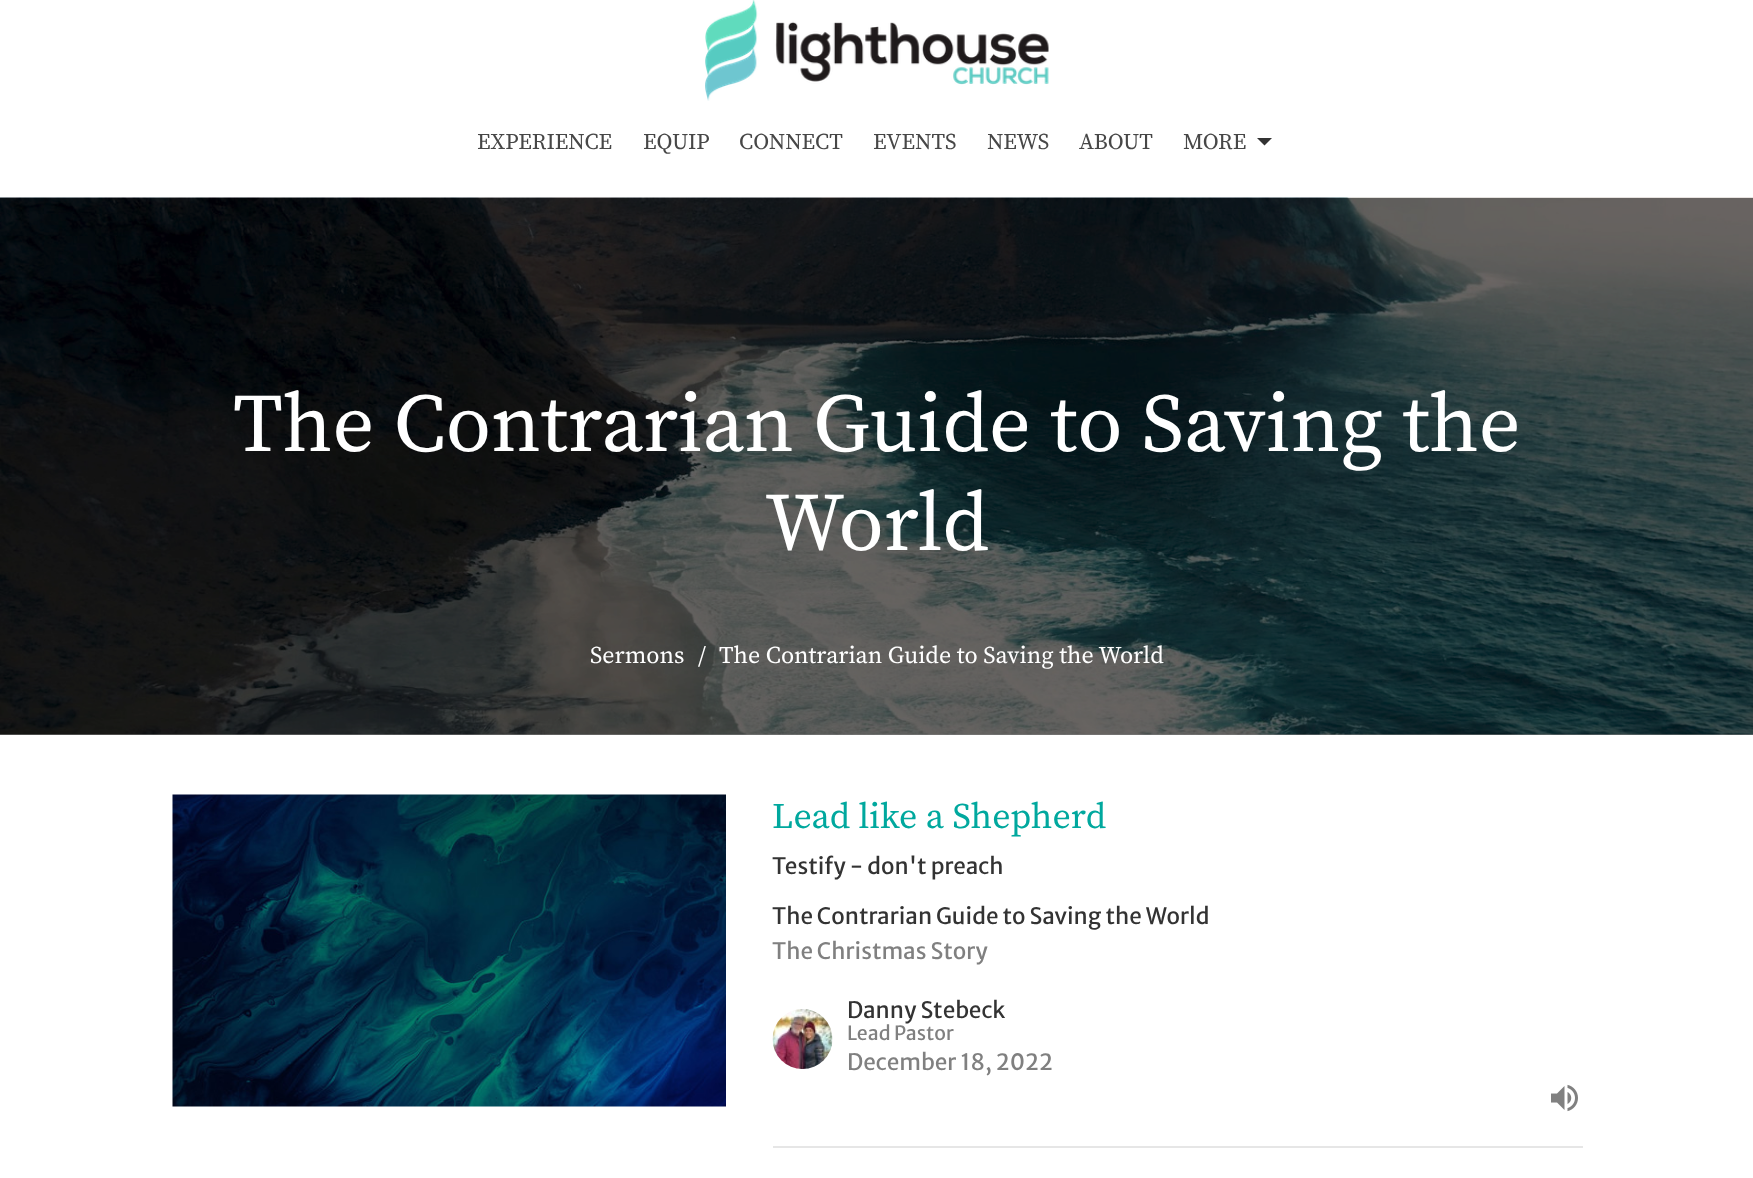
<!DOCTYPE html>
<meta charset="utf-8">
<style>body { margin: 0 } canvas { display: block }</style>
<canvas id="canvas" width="1753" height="1178"></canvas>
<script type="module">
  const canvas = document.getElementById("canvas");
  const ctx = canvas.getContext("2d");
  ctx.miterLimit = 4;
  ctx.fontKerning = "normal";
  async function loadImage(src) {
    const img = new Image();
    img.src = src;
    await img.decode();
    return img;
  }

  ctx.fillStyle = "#ffffff";
  ctx.fillRect(0, 0, 1753, 1178);
  ctx.fillStyle = "#808080";
  ctx.fillRect(0, 734, 1753, 1);
  ctx.drawImage(await loadImage("img1.png"), 705, 0, 344, 101);
  ctx.font = "22.5px Source Serif Pro";
  ctx.fillStyle = "#474747";
  ctx.fillText("EXPERIENCE", 477, 149);
  ctx.fillText("EQUIP", 643, 149);
  ctx.fillText("CONNECT", 739, 149);
  ctx.fillText("EVENTS", 873, 149);
  ctx.fillText("NEWS", 987, 149);
  ctx.fillText("ABOUT", 1079, 149);
  ctx.fillText("MORE", 1183, 149);
  ctx.fillStyle = "#333333";
  ctx.beginPath();
  ctx.moveTo(1257, 138);
  ctx.lineTo(1264.5, 145.5);
  ctx.lineTo(1272, 138);
  ctx.closePath();
  ctx.fill();
  ctx.drawImage(await loadImage("img2.png"), 0, 197, 1753, 538);
  ctx.font = "82.5px Source Serif Pro";
  ctx.fillStyle = "#ffffff";
  ctx.fillText("The Contrarian Guide to Saving the", 233, 451);
  ctx.fillText("World", 765, 550);
  ctx.font = "24px Source Serif Pro";
  ctx.fillText("Sermons", 590, 663);
  ctx.fillText("/", 698, 663);
  ctx.fillText("The Contrarian Guide to Saving the World", 719, 663);
  ctx.drawImage(await loadImage("img3.png"), 172, 794, 554, 313);
  ctx.fillStyle = "#e6e6e6";
  ctx.fillRect(773, 1146, 810, 2);
  ctx.font = "36px Source Serif Pro";
  ctx.fillStyle = "#00a89e";
  ctx.fillText("Lead like a Shepherd", 772, 828);
  ctx.font = "22.5px Merriweather Sans";
  ctx.fillStyle = "#333333";
  ctx.fillText("Testify - don't preach", 772, 874);
  ctx.fillText("The Contrarian Guide to Saving the World", 772, 924);
  ctx.fillStyle = "#808080";
  ctx.fillText("The Christmas Story", 772, 959);
  ctx.drawImage(await loadImage("img4.png"), 772, 1009, 61, 60);
  ctx.fillStyle = "#333333";
  ctx.fillText("Danny Stebeck", 847, 1018);
  ctx.font = "19.5px Merriweather Sans";
  ctx.fillStyle = "#808080";
  ctx.fillText("Lead Pastor", 847, 1040);
  ctx.font = "22.5px Merriweather Sans";
  ctx.fillText("December 18, 2022", 847, 1070);
  ctx.drawImage(await loadImage("img5.png"), 1551, 1084, 27, 28);
</script>
